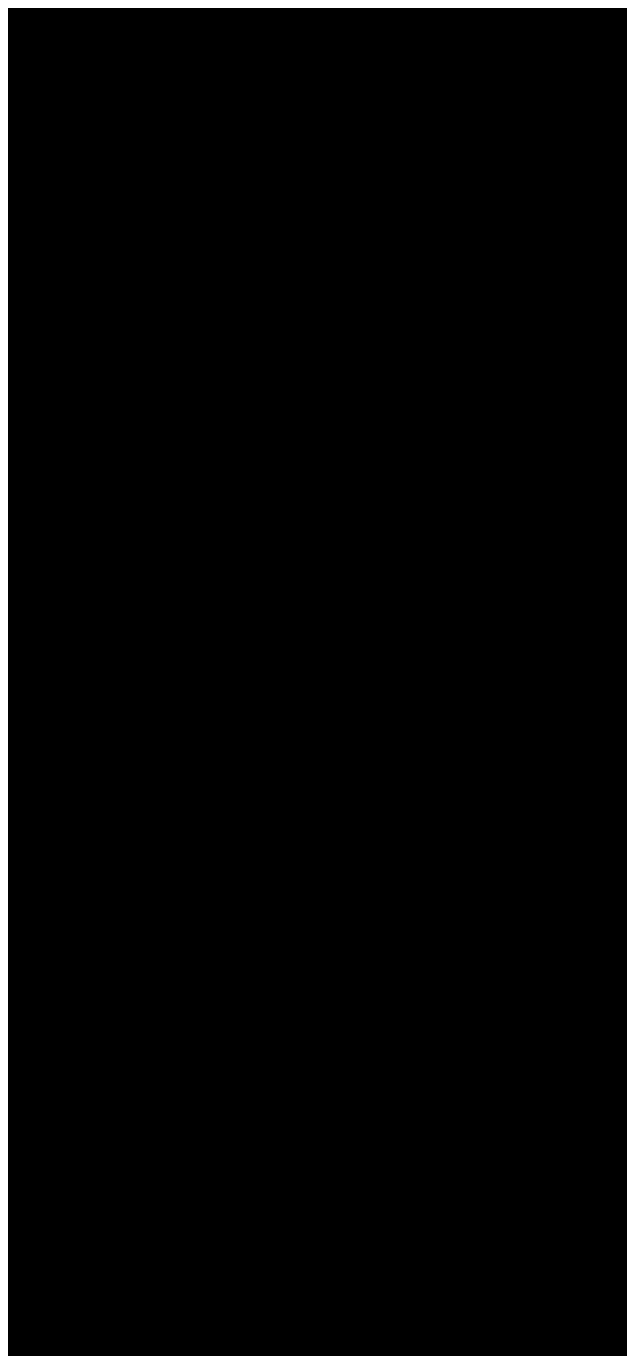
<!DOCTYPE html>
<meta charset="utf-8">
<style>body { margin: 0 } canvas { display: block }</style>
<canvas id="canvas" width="627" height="1356"></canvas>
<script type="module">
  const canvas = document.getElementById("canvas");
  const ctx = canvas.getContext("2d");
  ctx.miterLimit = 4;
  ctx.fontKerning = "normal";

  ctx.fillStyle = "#ffffff";
  ctx.fillRect(0, 0, 627, 1356);
  ctx.fillStyle = "#000000";
  ctx.fillRect(8, 8, 619, 1348);
</script>
